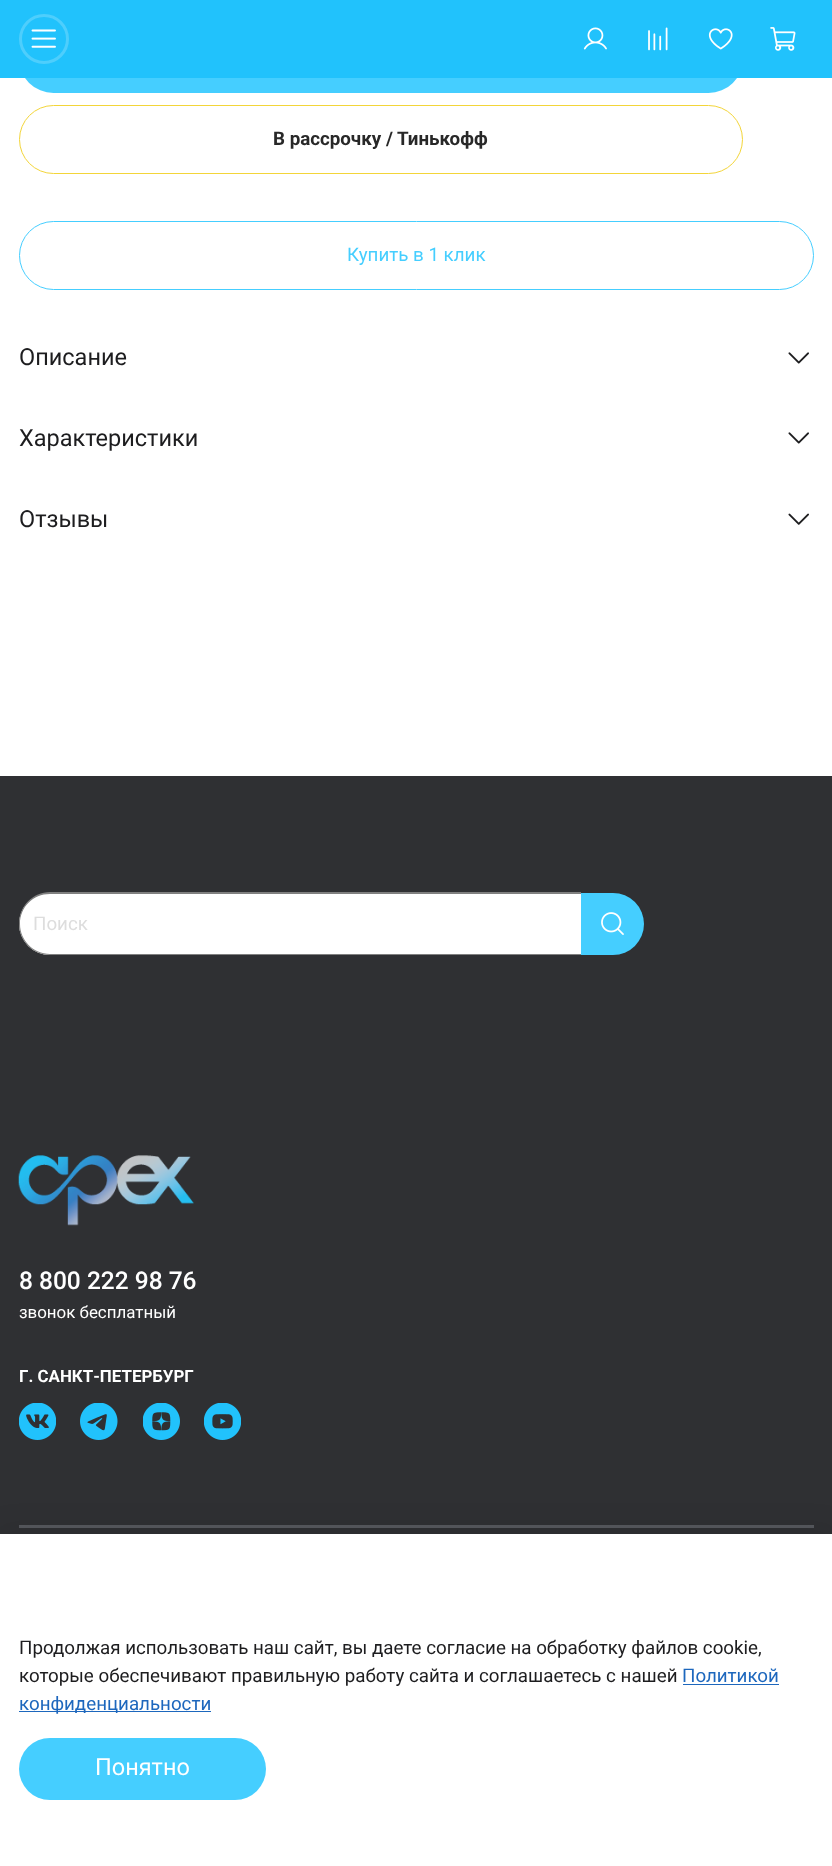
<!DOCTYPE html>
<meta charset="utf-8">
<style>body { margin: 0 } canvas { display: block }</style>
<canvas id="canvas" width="832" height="1866"></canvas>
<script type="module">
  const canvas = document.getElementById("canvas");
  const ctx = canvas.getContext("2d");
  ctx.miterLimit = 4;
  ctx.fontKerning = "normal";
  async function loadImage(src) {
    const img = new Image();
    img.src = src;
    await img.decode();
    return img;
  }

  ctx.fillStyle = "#ffffff";
  ctx.fillRect(0, 0, 832, 1866);
  ctx.fillStyle = "#45ceff";
  ctx.beginPath();
  ctx.roundRect(19, 24, 724, 69, 34.5);
  ctx.fill();
  ctx.fillStyle = "#21c2fc";
  ctx.fillRect(0, 0, 832, 78);
  ctx.beginPath();
  ctx.arc(44, 39, 23.5, 0, Math.PI * 2);
  ctx.strokeStyle = "#4ecefc";
  ctx.lineWidth = 3;
  ctx.stroke();
  ctx.drawImage(await loadImage("img1.png"), 31, 29, 25, 19);
  ctx.drawImage(await loadImage("img2.png"), 583, 27, 24, 23);
  ctx.drawImage(await loadImage("img3.png"), 648, 27, 20, 24);
  ctx.drawImage(await loadImage("img4.png"), 708, 28, 25, 22);
  ctx.drawImage(await loadImage("img5.png"), 770, 27, 26, 24);
  ctx.beginPath();
  ctx.roundRect(19.5, 105.5, 723, 68, 34);
  ctx.strokeStyle = "#f3d539";
  ctx.lineWidth = 1;
  ctx.stroke();
  ctx.font = "bold 18.75px Roboto";
  ctx.fillStyle = "#282828";
  ctx.fillText("В рассрочку / Тинькофф", 273, 145);
  ctx.beginPath();
  ctx.roundRect(19.5, 221.5, 794, 68, 34);
  ctx.strokeStyle = "#45ceff";
  ctx.stroke();
  ctx.font = "18.75px Roboto";
  ctx.fillStyle = "#45ceff";
  ctx.fillText("Купить в 1 клик", 347, 261);
  ctx.font = "23.5px Roboto";
  ctx.fillStyle = "#1d1d1f";
  ctx.fillText("Описание", 19, 365);
  ctx.drawImage(await loadImage("img6.png"), 788, 352, 21, 12);
  ctx.fillText("Характеристики", 19, 446);
  ctx.drawImage(await loadImage("img6.png"), 788, 432, 21, 12);
  ctx.fillText("Отзывы", 19, 527);
  ctx.drawImage(await loadImage("img7.png"), 788, 513, 21, 12);
  ctx.fillStyle = "#2f3033";
  ctx.fillRect(0, 776, 832, 758);
  ctx.fillStyle = "#ffffff";
  ctx.beginPath();
  ctx.roundRect(19, 893, 562, 62, [31, 0, 0, 31]);
  ctx.fill();
  ctx.fillStyle = "#808080";
  ctx.beginPath();
  ctx.moveTo(50, 892);
  ctx.lineTo(581, 892);
  ctx.lineTo(581, 955);
  ctx.lineTo(50, 955);
  ctx.bezierCurveTo(33, 955, 19, 941, 19, 924);
  ctx.bezierCurveTo(19, 906, 33, 892, 50, 892);
  ctx.closePath();
  ctx.moveTo(50, 894);
  ctx.lineTo(581, 894);
  ctx.lineTo(581, 954);
  ctx.lineTo(50, 954);
  ctx.bezierCurveTo(33, 954, 20, 940, 20, 924);
  ctx.bezierCurveTo(20, 907, 33, 894, 50, 894);
  ctx.closePath();
  ctx.fill("evenodd");
  ctx.font = "18.75px Roboto";
  ctx.fillStyle = "#dddddd";
  ctx.fillText("Поиск", 33, 930);
  ctx.fillStyle = "#45ceff";
  ctx.beginPath();
  ctx.roundRect(581, 893, 63, 62, [0, 31, 31, 0]);
  ctx.fill();
  ctx.drawImage(await loadImage("img8.png"), 601, 912, 23, 23);
  ctx.drawImage(await loadImage("img9.png"), 18, 1155, 176, 71);
  ctx.font = "500 24.5px Roboto";
  ctx.fillStyle = "#ffffff";
  ctx.fillText("8 800 222 98 76", 19, 1289);
  ctx.font = "16.9px Roboto";
  ctx.fillText("звонок бесплатный", 19, 1318);
  ctx.font = "bold 16.9px Roboto";
  ctx.fillText("Г. САНКТ-ПЕТЕРБУРГ", 19, 1382);
  ctx.drawImage(await loadImage("img10.png"), 19, 1403, 37, 37);
  ctx.drawImage(await loadImage("img11.png"), 80, 1403, 38, 37);
  ctx.drawImage(await loadImage("img12.png"), 143, 1403, 37, 37);
  ctx.drawImage(await loadImage("img13.png"), 204, 1403, 37, 37);
  ctx.fillStyle = "#56585d";
  ctx.fillRect(19, 1525, 795, 3);
  ctx.fillStyle = "rgba(0, 0, 0, 0.09)";
  ctx.filter = "blur(14.5px)";
  ctx.beginPath();
  ctx.rect(-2, 1530, 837, 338);
  ctx.fill();
  ctx.filter = "none";
  ctx.fillStyle = "#ffffff";
  ctx.fillRect(0, 1534, 832, 332);
  ctx.font = "18.75px Roboto";
  ctx.fillStyle = "#1d1d1f";
  ctx.fillText("Продолжая использовать наш сайт, вы даете согласие на обработку файлов cookie,", 19, 1654);
  ctx.fillText("которые обеспечивают правильную работу сайта и соглашаетесь с нашей", 19, 1682);
  ctx.fillStyle = "#1d67bd";
  ctx.fillText("Политикой", 682, 1682);
  ctx.fillRect(683, 1684, 96, 1);
  ctx.fillRect(19, 1711, 192, 1);
  ctx.fillText("конфиденциальности", 19, 1710);
  ctx.fillStyle = "#45ceff";
  ctx.beginPath();
  ctx.roundRect(19, 1738, 247, 62, 31);
  ctx.fill();
  ctx.font = "23.5px Roboto";
  ctx.fillStyle = "#ffffff";
  ctx.fillText("Понятно", 95, 1775);
</script>
